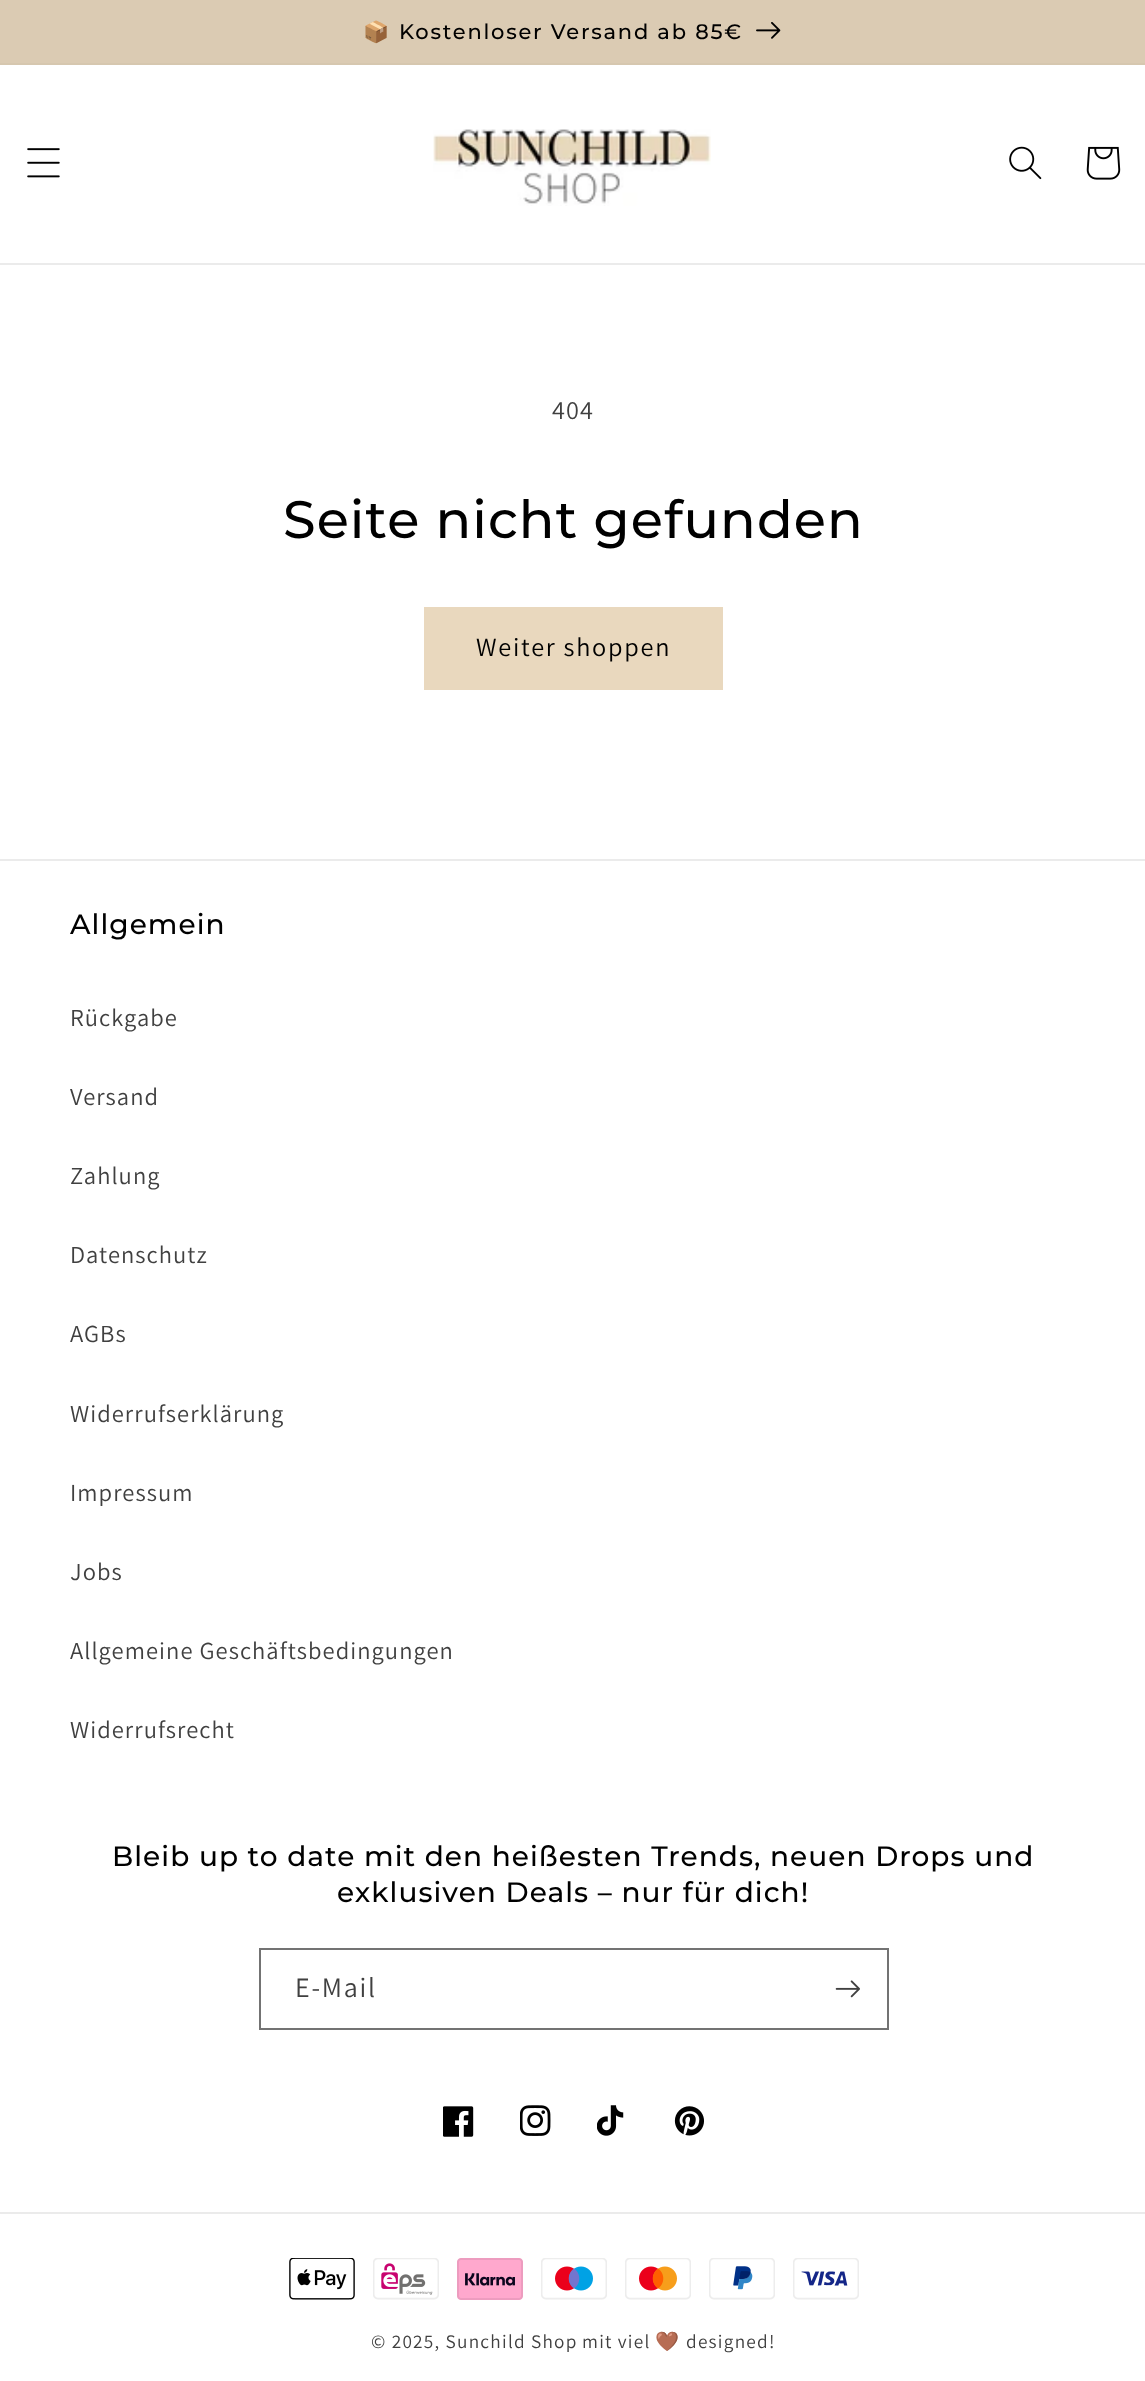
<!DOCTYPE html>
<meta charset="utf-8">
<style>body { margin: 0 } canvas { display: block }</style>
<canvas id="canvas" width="1145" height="2381"></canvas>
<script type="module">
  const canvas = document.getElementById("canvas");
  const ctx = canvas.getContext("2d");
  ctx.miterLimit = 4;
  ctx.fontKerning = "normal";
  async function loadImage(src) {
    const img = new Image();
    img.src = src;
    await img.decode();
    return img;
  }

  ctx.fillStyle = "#ffffff";
  ctx.fillRect(0, 0, 1145, 2381);
  ctx.fillStyle = "#d6c7af";
  ctx.fillRect(0, 63, 1145, 2);
  ctx.fillStyle = "#dbcbb3";
  ctx.fillRect(0, 0, 1145, 63);
  ctx.letterSpacing = "1.75px";
  ctx.font = "21px Noto Color Emoji";
  ctx.fillStyle = "#000000";
  ctx.fillText("📦", 363, 39);
  ctx.font = "500 21px Montserrat";
  ctx.fillText("Kostenloser Versand ab 85€", 399, 39);
  ctx.drawImage(await loadImage("img1.png"), 756, 22, 25, 17);
  ctx.fillStyle = "#ebebeb";
  ctx.fillRect(0, 263, 1145, 2);
  ctx.drawImage(await loadImage("img2.png"), 27, 148, 33, 30);
  ctx.drawImage(await loadImage("img3.png"), 433, 129, 278, 77);
  ctx.drawImage(await loadImage("img4.png"), 1009, 146, 33, 34);
  ctx.drawImage(await loadImage("img5.png"), 1086, 146, 35, 34);
  ctx.letterSpacing = "1.05px";
  ctx.font = "26.25px Assistant";
  ctx.fillStyle = "#404040";
  ctx.fillText("404", 552, 419);
  ctx.font = "500 52.5px Montserrat";
  ctx.fillStyle = "#000000";
  ctx.fillText("Seite nicht gefunden", 283, 538);
  ctx.fillStyle = "#e9d8be";
  ctx.fillRect(424, 607, 299, 83);
  ctx.letterSpacing = "1.75px";
  ctx.font = "26.25px Assistant";
  ctx.fillStyle = "#000000";
  ctx.fillText("Weiter shoppen", 476, 656);
  ctx.fillStyle = "#ebebeb";
  ctx.fillRect(0, 859, 1145, 2);
  ctx.letterSpacing = "1.05px";
  ctx.font = "500 28px Montserrat";
  ctx.fillStyle = "#000000";
  ctx.fillText("Allgemein", 70, 934);
  ctx.font = "24.5px Assistant";
  ctx.fillStyle = "#404040";
  ctx.fillText("Rückgabe", 70, 1026);
  ctx.fillText("Versand", 70, 1105);
  ctx.fillText("Zahlung", 70, 1184);
  ctx.fillText("Datenschutz", 70, 1263);
  ctx.fillText("AGBs", 70, 1342);
  ctx.fillText("Widerrufserklärung", 70, 1422);
  ctx.fillText("Impressum", 70, 1501);
  ctx.fillText("Jobs", 70, 1580);
  ctx.fillText("Allgemeine Geschäftsbedingungen", 70, 1659);
  ctx.fillText("Widerrufsrecht", 70, 1738);
  ctx.font = "500 28px Montserrat";
  ctx.fillStyle = "#000000";
  ctx.fillText("Bleib up to date mit den heißesten Trends, neuen Drops und", 112, 1866);
  ctx.fillText("exklusiven Deals – nur für dich!", 337, 1902);
  ctx.strokeStyle = "#737373";
  ctx.lineWidth = 2;
  ctx.strokeRect(260, 1949, 628, 80);
  ctx.letterSpacing = "1.75px";
  ctx.font = "28px Assistant";
  ctx.fillStyle = "#404040";
  ctx.fillText("E-Mail", 295, 1997);
  ctx.drawImage(await loadImage("img6.png"), 835, 1980, 25, 18);
  ctx.drawImage(await loadImage("img7.png"), 443, 2106, 31, 31);
  ctx.drawImage(await loadImage("img8.png"), 520, 2105, 31, 31);
  ctx.drawImage(await loadImage("img9.png"), 597, 2105, 27, 31);
  ctx.drawImage(await loadImage("img10.png"), 674, 2106, 30, 30);
  ctx.fillStyle = "#ebebeb";
  ctx.fillRect(0, 2212, 1145, 2);
  ctx.drawImage(await loadImage("img11.png"), 289, 2258, 66, 42);
  ctx.drawImage(await loadImage("img12.png"), 373, 2258, 66, 42);
  ctx.drawImage(await loadImage("img13.png"), 457, 2258, 66, 42);
  ctx.drawImage(await loadImage("img14.png"), 541, 2258, 66, 42);
  ctx.drawImage(await loadImage("img15.png"), 625, 2258, 66, 42);
  ctx.drawImage(await loadImage("img16.png"), 709, 2258, 66, 42);
  ctx.drawImage(await loadImage("img17.png"), 793, 2258, 66, 42);
  ctx.letterSpacing = "1.25px";
  ctx.font = "19.25px Assistant";
  ctx.fillStyle = "#404040";
  ctx.fillText("© 2025, Sunchild Shop", 371, 2348);
  ctx.fillText("mit viel", 582, 2348);
  ctx.font = "19.25px Noto Color Emoji";
  ctx.fillText("🤎", 655, 2348);
  ctx.font = "19.25px Assistant";
  ctx.fillText("designed!", 686, 2348);
</script>
